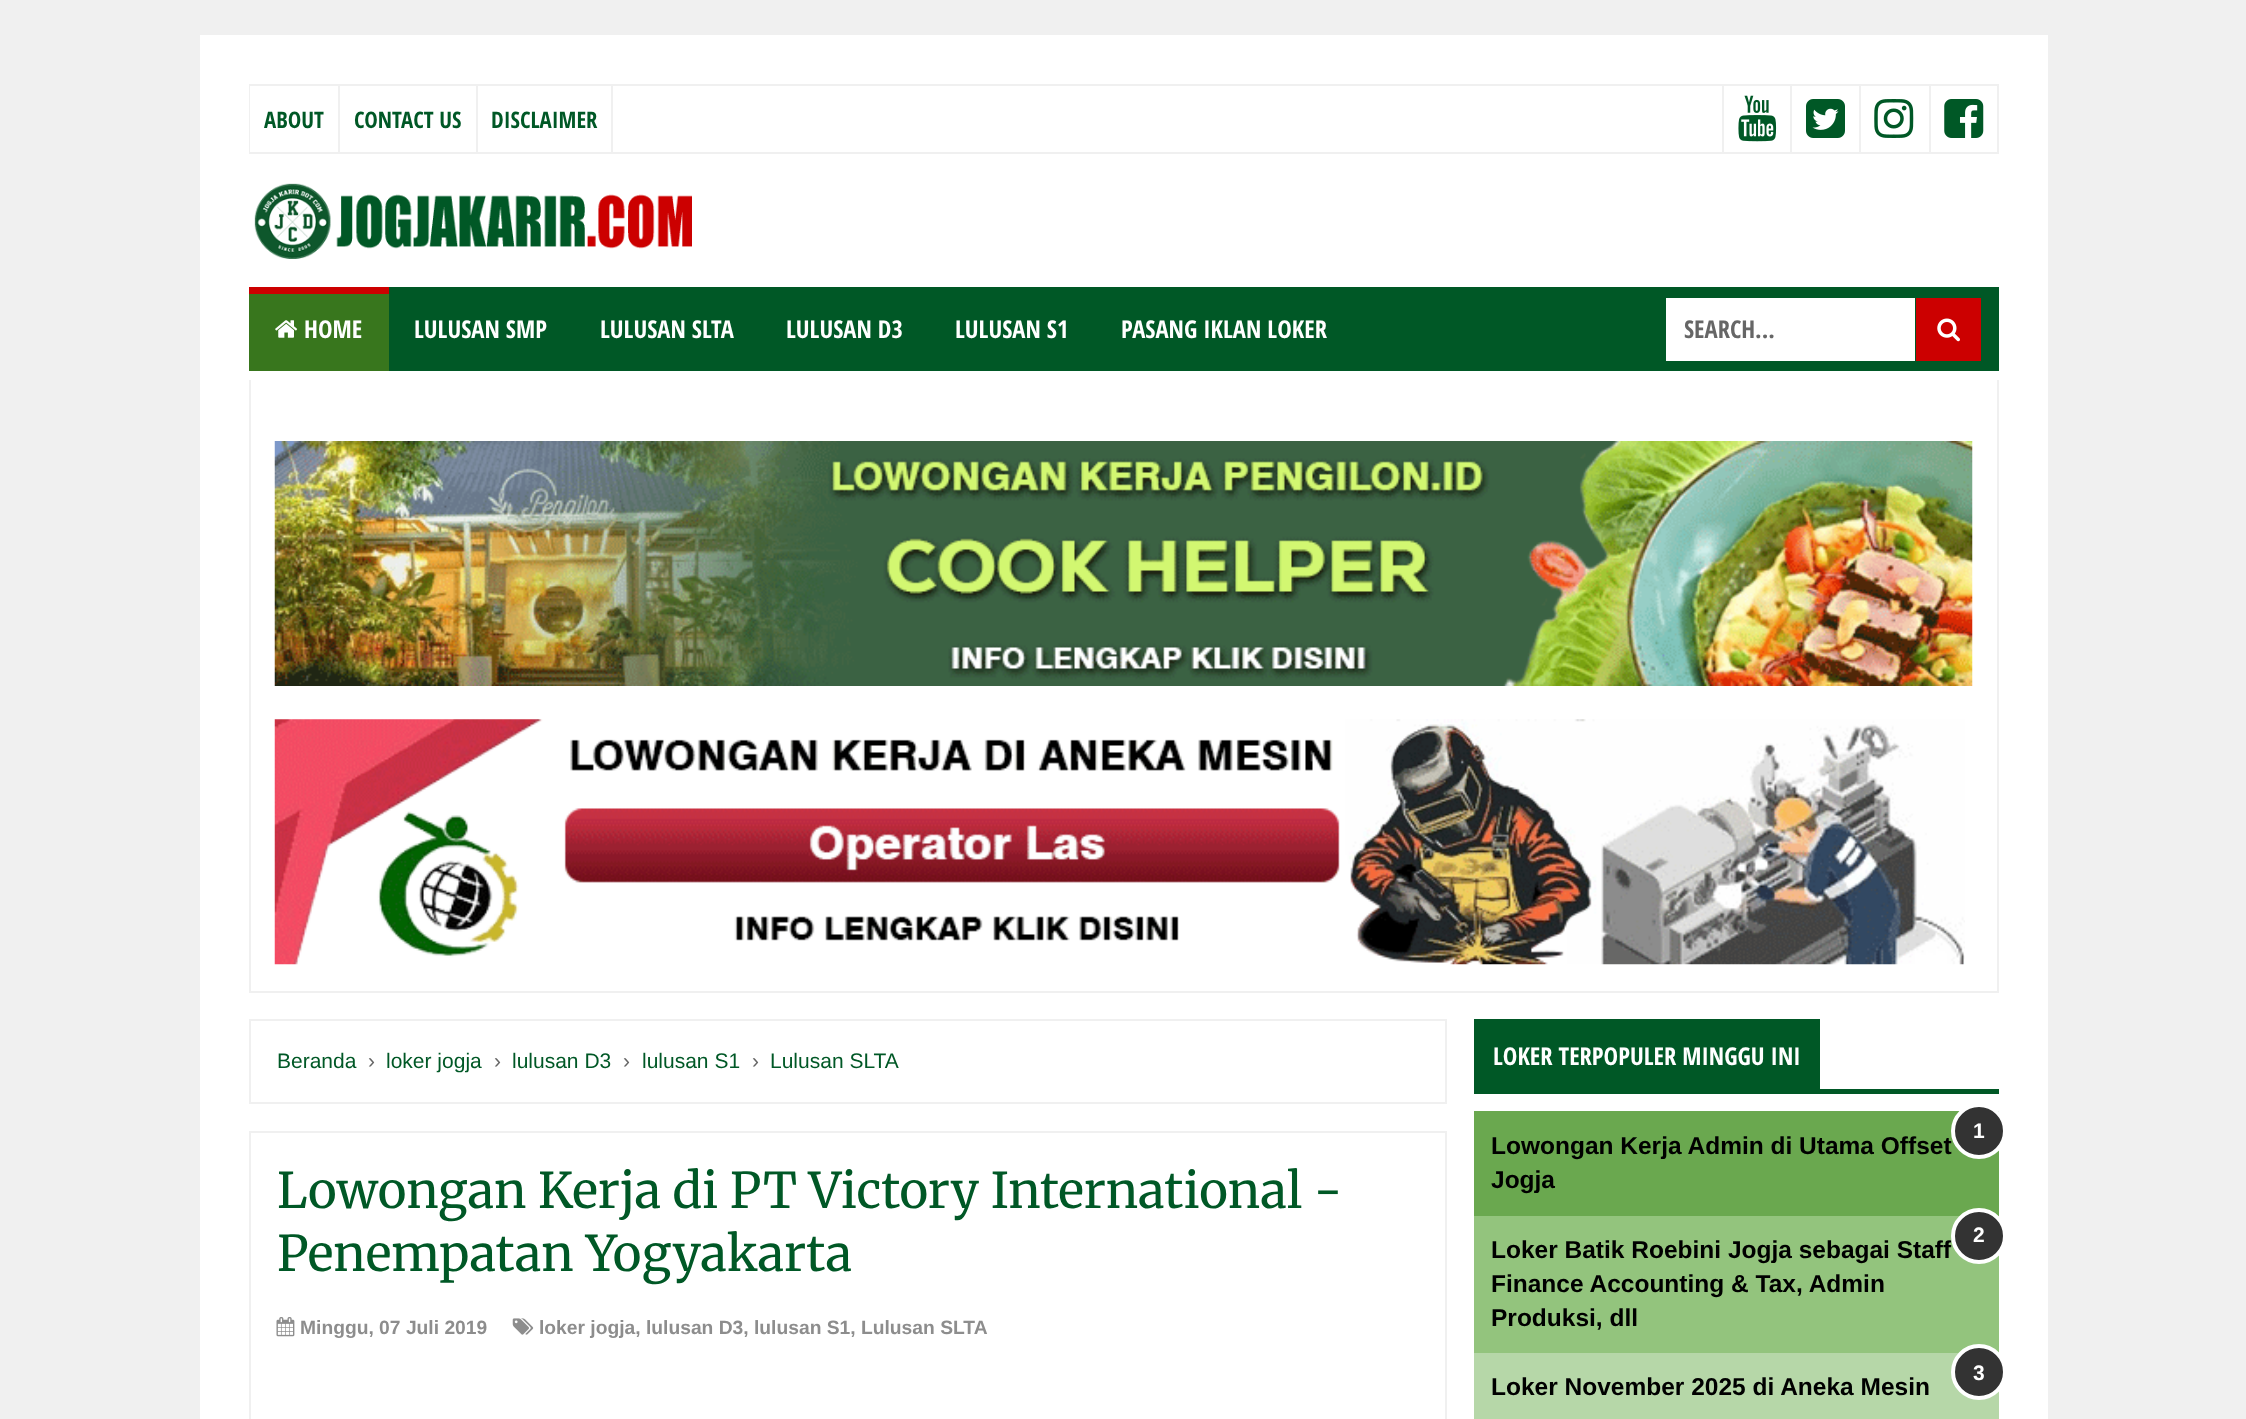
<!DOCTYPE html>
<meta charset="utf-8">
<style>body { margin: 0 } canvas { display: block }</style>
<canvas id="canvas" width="2246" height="1419"></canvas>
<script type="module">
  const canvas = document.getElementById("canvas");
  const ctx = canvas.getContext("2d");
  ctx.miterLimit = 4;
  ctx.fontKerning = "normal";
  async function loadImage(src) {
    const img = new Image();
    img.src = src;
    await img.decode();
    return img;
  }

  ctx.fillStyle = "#f0f0f0";
  ctx.fillRect(0, 0, 2246, 1419);
  ctx.fillStyle = "#ffffff";
  ctx.fillRect(200, 35, 1848, 1384);
  ctx.strokeStyle = "#f0f0f0";
  ctx.lineWidth = 2;
  ctx.strokeRect(250, 85, 1748, 68);
  ctx.fillStyle = "#f0f0f0";
  ctx.fillRect(338, 86, 2, 66);
  ctx.fillStyle = "#ffffff";
  ctx.fillRect(250, 86, 1, 66);
  ctx.font = "bold 22.75px Open Sans Condensed";
  ctx.fillStyle = "#005826";
  ctx.fillText("ABOUT", 264, 128);
  ctx.fillStyle = "#f0f0f0";
  ctx.fillRect(476, 86, 2, 66);
  ctx.fillStyle = "#005826";
  ctx.fillText("CONTACT US", 354, 128);
  ctx.fillStyle = "#f0f0f0";
  ctx.fillRect(611, 86, 2, 66);
  ctx.fillStyle = "#005826";
  ctx.fillText("DISCLAIMER", 491, 128);
  ctx.fillStyle = "#f0f0f0";
  ctx.fillRect(1722, 86, 2, 66);
  ctx.drawImage(await loadImage("img1.png"), 1738, 95, 39, 47);
  ctx.fillRect(1790, 86, 2, 66);
  ctx.drawImage(await loadImage("img2.png"), 1806, 99, 39, 39);
  ctx.fillRect(1859, 86, 2, 66);
  ctx.drawImage(await loadImage("img3.png"), 1874, 99, 40, 39);
  ctx.fillRect(1929, 86, 2, 66);
  ctx.drawImage(await loadImage("img4.png"), 1944, 99, 40, 39);
  ctx.drawImage(await loadImage("img5.png"), 254, 183, 438, 76);
  ctx.fillStyle = "#005826";
  ctx.fillRect(389, 287, 1610, 84);
  ctx.fillStyle = "#38761d";
  ctx.fillRect(249, 294, 140, 77);
  ctx.fillStyle = "#cc0000";
  ctx.fillRect(249, 287, 140, 7);
  ctx.drawImage(await loadImage("img6.png"), 275, 320, 23, 18);
  ctx.font = "bold 24.5px Open Sans Condensed";
  ctx.fillStyle = "#ffffff";
  ctx.fillText("HOME", 304, 338);
  ctx.fillText("LULUSAN SMP", 414, 338);
  ctx.fillText("LULUSAN SLTA", 600, 338);
  ctx.fillText("LULUSAN D3", 786, 338);
  ctx.fillText("LULUSAN S1", 955, 338);
  ctx.fillText("PASANG IKLAN LOKER", 1121, 338);
  ctx.fillRect(1666, 298, 249, 63);
  ctx.fillStyle = "#666666";
  ctx.fillText("SEARCH...", 1684, 338);
  ctx.fillStyle = "#cc0000";
  ctx.fillRect(1916, 298, 65, 63);
  ctx.drawImage(await loadImage("img7.png"), 1937, 318, 23, 24);
  ctx.fillStyle = "#f0f0f0";
  ctx.fillRect(1997, 380, 2, 612);
  ctx.fillRect(249, 991, 1750, 2);
  ctx.fillRect(249, 380, 2, 612);
  ctx.drawImage(await loadImage("img8.png"), 274, 441, 1699, 245);
  ctx.drawImage(await loadImage("img9.png"), 274, 719, 1691, 246);
  ctx.strokeRect(250, 1020, 1196, 83);
  ctx.font = "21px Liberation Sans";
  ctx.fillStyle = "#005826";
  ctx.fillText("Beranda", 277, 1068);
  ctx.fillStyle = "#666666";
  ctx.fillText("›", 368, 1068);
  ctx.fillStyle = "#005826";
  ctx.fillText("loker jogja", 386, 1068);
  ctx.fillStyle = "#666666";
  ctx.fillText("›", 494, 1068);
  ctx.fillStyle = "#005826";
  ctx.fillText("lulusan D3", 512, 1068);
  ctx.fillStyle = "#666666";
  ctx.fillText("›", 623, 1068);
  ctx.fillStyle = "#005826";
  ctx.fillText("lulusan S1", 642, 1068);
  ctx.fillStyle = "#666666";
  ctx.fillText("›", 752, 1068);
  ctx.fillStyle = "#005826";
  ctx.fillText("Lulusan SLTA", 770, 1068);
  ctx.strokeRect(250, 1132, 1196, 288);
  ctx.font = "300 49px Merriweather";
  ctx.fillText("Lowongan Kerja di PT Victory International -", 277, 1208);
  ctx.fillText("Penempatan Yogyakarta", 277, 1271);
  ctx.drawImage(await loadImage("img10.png"), 276, 1317, 19, 20);
  ctx.font = "bold 19.25px Liberation Sans";
  ctx.fillStyle = "#8d8d8d";
  ctx.fillText("Minggu, 07 Juli 2019", 300, 1334);
  ctx.drawImage(await loadImage("img11.png"), 512, 1318, 22, 17);
  ctx.fillText("loker jogja, lulusan D3, lulusan S1, Lulusan SLTA", 539, 1334);
  ctx.fillStyle = "#005826";
  ctx.fillRect(1474, 1089, 525, 5);
  ctx.fillRect(1474, 1019, 346, 70);
  ctx.font = "bold 24.5px Open Sans Condensed";
  ctx.fillStyle = "#ffffff";
  ctx.fillText("LOKER TERPOPULER MINGGU INI", 1493, 1065);
  ctx.fillStyle = "#6aa84f";
  ctx.fillRect(1474, 1111, 525, 105);
  ctx.font = "bold 24.5px Liberation Sans";
  ctx.fillStyle = "#000000";
  ctx.fillText("Lowongan Kerja Admin di Utama Offset", 1491, 1154);
  ctx.fillStyle = "#333333";
  ctx.beginPath();
  ctx.arc(1979, 1131, 26, 0, Math.PI * 2);
  ctx.fill();
  ctx.strokeStyle = "#ffffff";
  ctx.lineWidth = 4;
  ctx.stroke();
  ctx.font = "bold 21px Liberation Sans";
  ctx.fillStyle = "#ffffff";
  ctx.fillText("1", 1973, 1138);
  ctx.font = "bold 24.5px Liberation Sans";
  ctx.fillStyle = "#000000";
  ctx.fillText("Jogja", 1491, 1188);
  ctx.fillStyle = "#93c47d";
  ctx.fillRect(1474, 1216, 525, 137);
  ctx.fillStyle = "#000000";
  ctx.fillText("Loker Batik Roebini Jogja sebagai Staff", 1491, 1258);
  ctx.fillStyle = "#333333";
  ctx.beginPath();
  ctx.arc(1979, 1236, 26, 0, Math.PI * 2);
  ctx.fill();
  ctx.stroke();
  ctx.font = "bold 21px Liberation Sans";
  ctx.fillStyle = "#ffffff";
  ctx.fillText("2", 1973, 1242);
  ctx.font = "bold 24.5px Liberation Sans";
  ctx.fillStyle = "#000000";
  ctx.fillText("Finance Accounting & Tax, Admin", 1491, 1292);
  ctx.fillText("Produksi, dll", 1491, 1326);
  ctx.fillStyle = "#b6d7a8";
  ctx.fillRect(1474, 1353, 525, 66);
  ctx.fillStyle = "#333333";
  ctx.beginPath();
  ctx.arc(1979, 1372, 26, 0, Math.PI * 2);
  ctx.fill();
  ctx.stroke();
  ctx.font = "bold 21px Liberation Sans";
  ctx.fillStyle = "#ffffff";
  ctx.fillText("3", 1973, 1380);
  ctx.font = "bold 24.5px Liberation Sans";
  ctx.fillStyle = "#000000";
  ctx.fillText("Loker November 2025 di Aneka Mesin", 1491, 1395);
</script>
